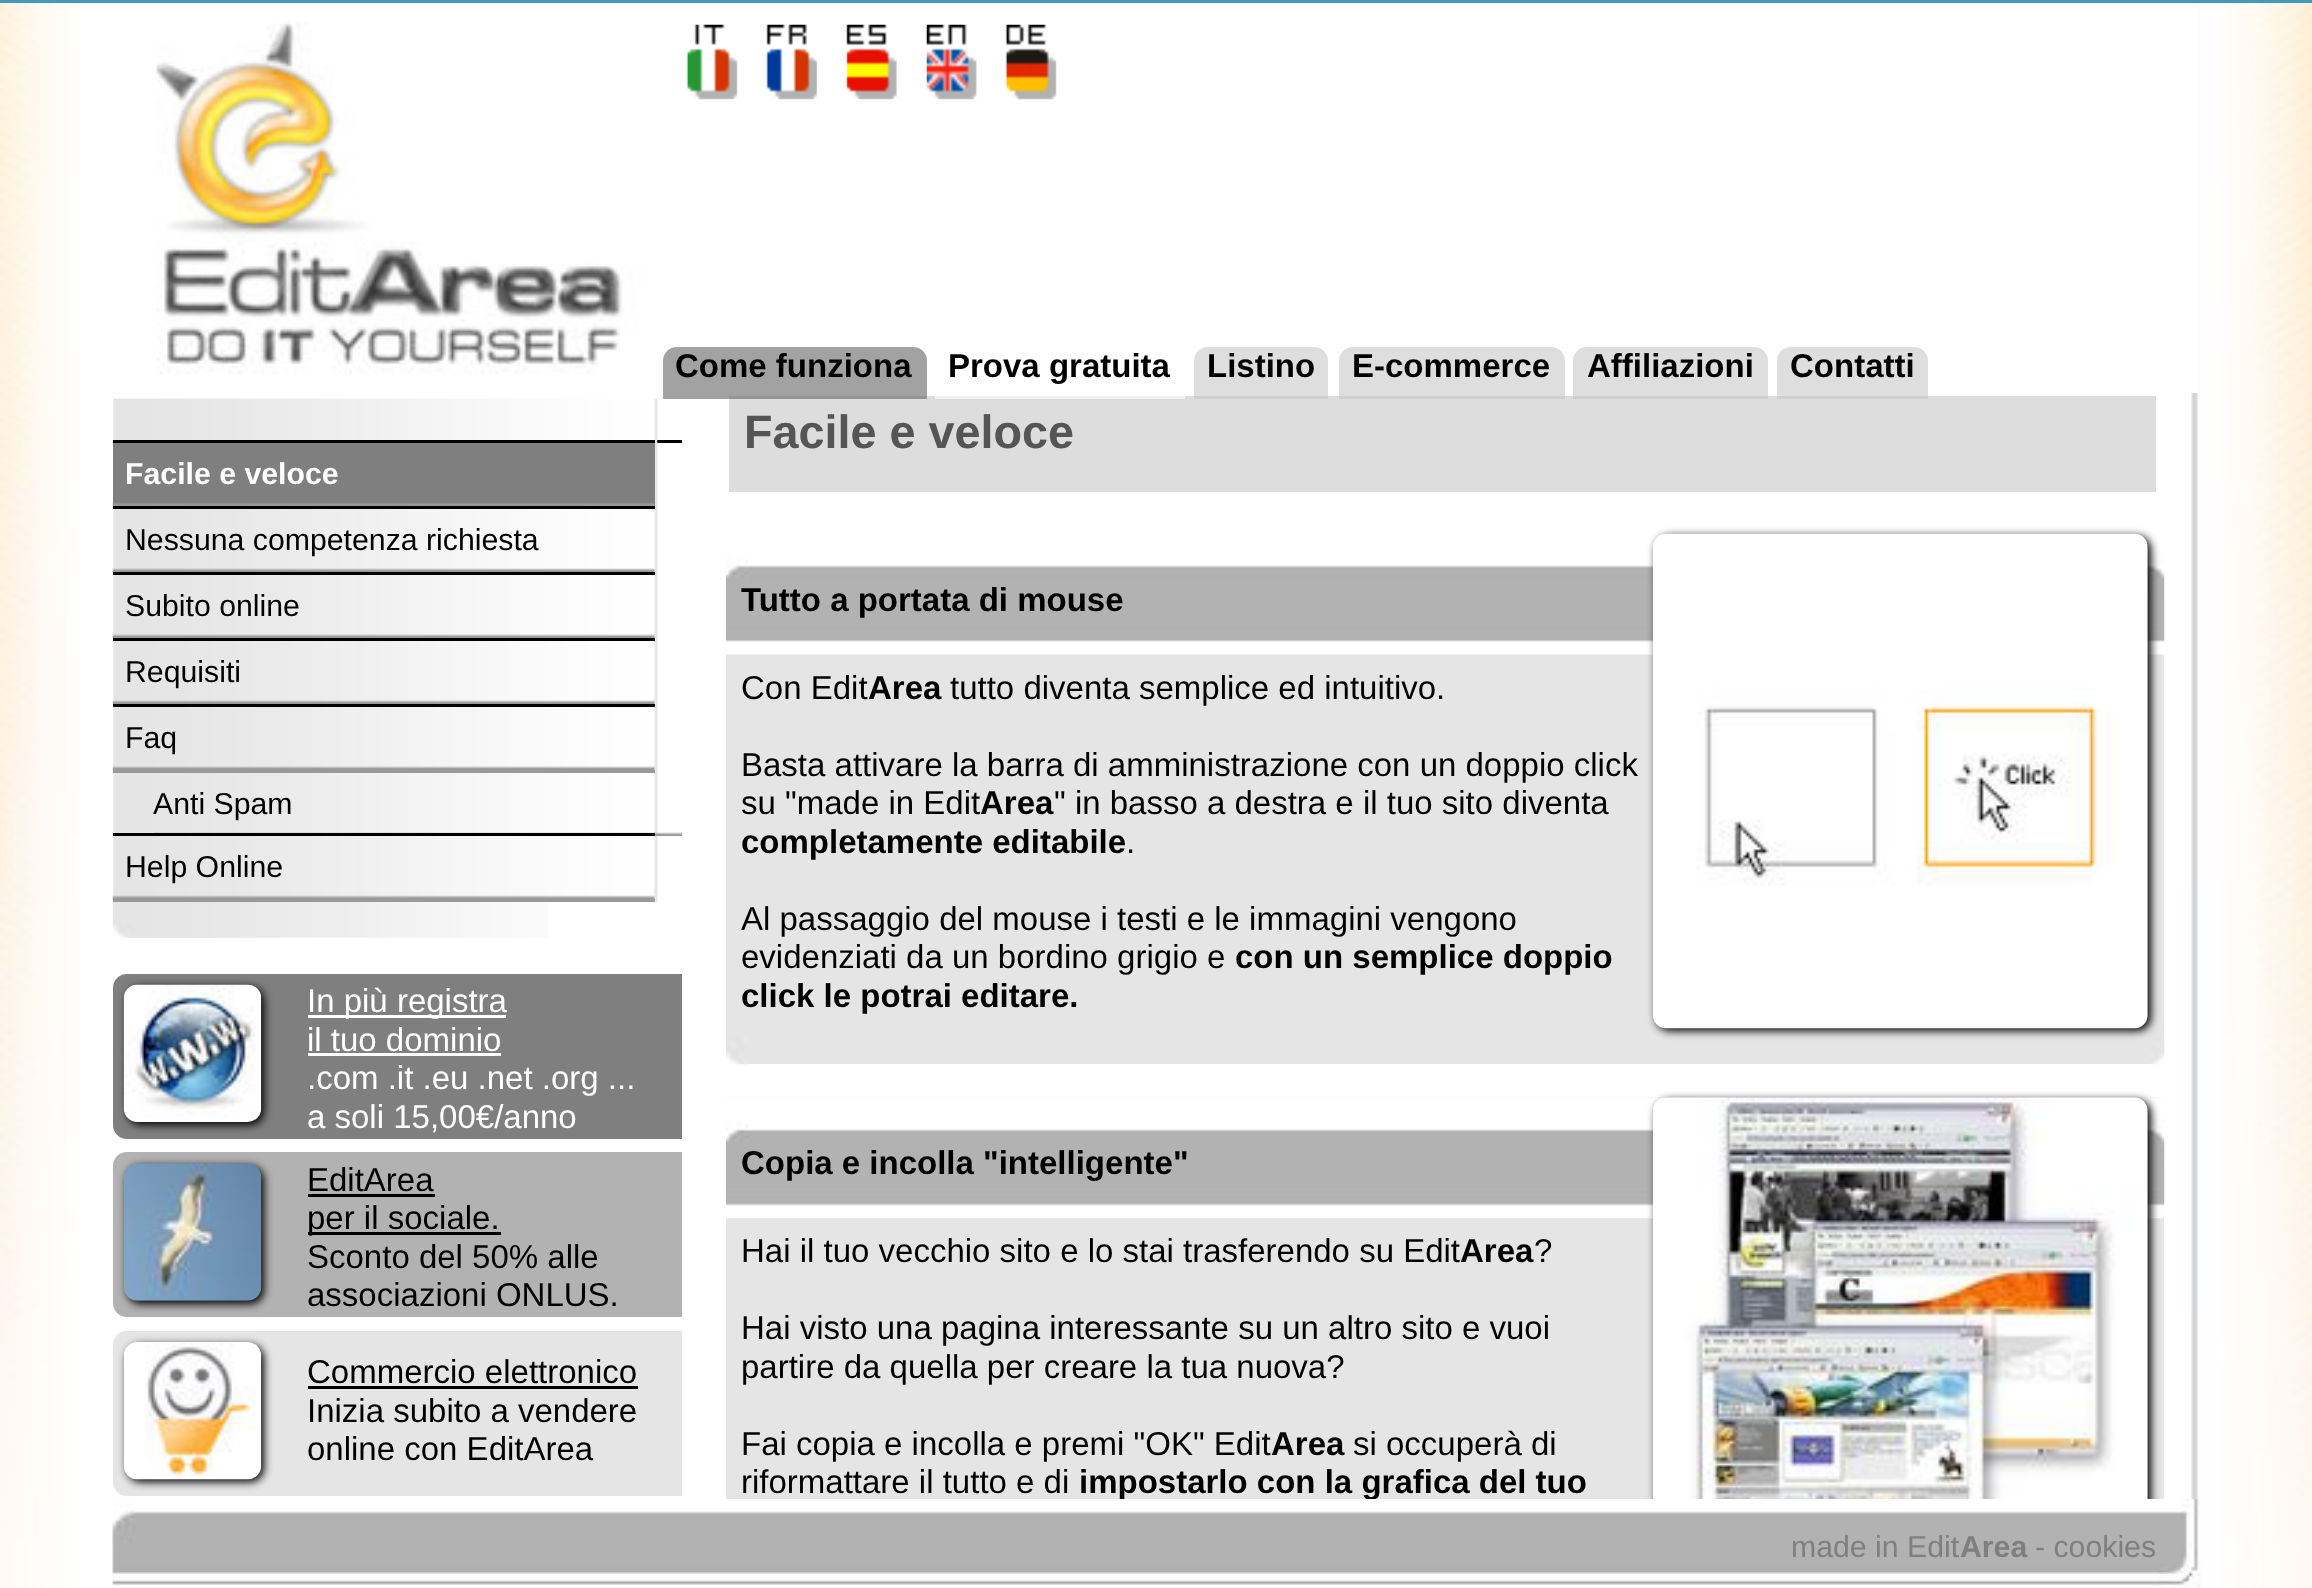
<!DOCTYPE html>
<meta charset="utf-8">
<style>body { margin: 0 } canvas { display: block }</style>
<canvas id="canvas" width="2312" height="1588"></canvas>
<script type="module">
  const canvas = document.getElementById("canvas");
  const ctx = canvas.getContext("2d");
  ctx.miterLimit = 4;
  ctx.fontKerning = "normal";
  async function loadImage(src) {
    const img = new Image();
    img.src = src;
    await img.decode();
    return img;
  }

  ctx.fillStyle = "#ffffff";
  ctx.fillRect(0, 0, 2312, 1588);
  ctx.drawImage(await loadImage("img1.png"), 0, 3, 2312, 1585);
  ctx.fillStyle = "#419abc";
  ctx.fillRect(0, 0, 2312, 3);
  ctx.drawImage(await loadImage("img2.png"), 156, 3, 2042, 390);
  ctx.drawImage(await loadImage("img3.png"), 686, 24, 52, 76);
  ctx.drawImage(await loadImage("img4.png"), 766, 24, 51, 76);
  ctx.drawImage(await loadImage("img5.png"), 846, 24, 51, 76);
  ctx.drawImage(await loadImage("img6.png"), 926, 24, 51, 76);
  ctx.drawImage(await loadImage("img7.png"), 1005, 24, 52, 76);
  ctx.fillStyle = "#dddddd";
  ctx.fillRect(729, 396, 1427, 96);
  ctx.fillStyle = "rgba(100, 100, 100, 0.6)";
  ctx.beginPath();
  ctx.roundRect(663, 347, 264, 52, [14, 14, 0, 0]);
  ctx.fill();
  ctx.font = "bold 33px Liberation Sans";
  ctx.fillStyle = "#000000";
  ctx.fillText("Come funziona", 675, 377);
  ctx.fillStyle = "rgba(255, 255, 255, 0.6)";
  ctx.beginPath();
  ctx.roundRect(935, 347, 250, 52, [14, 14, 0, 0]);
  ctx.fill();
  ctx.fillStyle = "#000000";
  ctx.fillText("Prova gratuita", 948, 377);
  ctx.fillStyle = "rgba(200, 200, 200, 0.6)";
  ctx.beginPath();
  ctx.roundRect(1194, 347, 134, 52, [14, 14, 0, 0]);
  ctx.fill();
  ctx.fillStyle = "#000000";
  ctx.fillText("Listino", 1207, 377);
  ctx.fillStyle = "rgba(200, 200, 200, 0.6)";
  ctx.beginPath();
  ctx.roundRect(1339, 347, 226, 52, [14, 14, 0, 0]);
  ctx.fill();
  ctx.fillStyle = "#000000";
  ctx.fillText("E-commerce", 1352, 377);
  ctx.fillStyle = "rgba(200, 200, 200, 0.6)";
  ctx.beginPath();
  ctx.roundRect(1573, 347, 195, 52, [14, 14, 0, 0]);
  ctx.fill();
  ctx.fillStyle = "#000000";
  ctx.fillText("Affiliazioni", 1587, 377);
  ctx.fillStyle = "rgba(200, 200, 200, 0.6)";
  ctx.beginPath();
  ctx.roundRect(1777, 347, 151, 52, [14, 14, 0, 0]);
  ctx.fill();
  ctx.fillStyle = "#000000";
  ctx.fillText("Contatti", 1790, 377);
  ctx.drawImage(await loadImage("img8.png"), 113, 398, 545, 504);
  ctx.drawImage(await loadImage("img9.png"), 114, 398, 544, 42);
  ctx.fillRect(657, 440, 25, 3);
  ctx.drawImage(await loadImage("img10.png"), 113, 440, 545, 462);
  ctx.fillStyle = "#7f7f7f";
  ctx.fillRect(113, 443, 542, 63);
  ctx.drawImage(await loadImage("img11.png"), 112, 502, 543, 4);
  ctx.fillStyle = "#000000";
  ctx.fillRect(113, 440, 542, 3);
  ctx.font = "bold 30.25px Liberation Sans";
  ctx.fillStyle = "#ffffff";
  ctx.fillText("Facile e veloce", 125, 484);
  ctx.drawImage(await loadImage("img12.png"), 112, 568, 543, 4);
  ctx.fillStyle = "#000000";
  ctx.fillRect(113, 506, 542, 3);
  ctx.font = "30.25px Liberation Sans";
  ctx.fillText("Nessuna competenza richiesta", 125, 550);
  ctx.drawImage(await loadImage("img12.png"), 112, 634, 543, 4);
  ctx.fillRect(113, 572, 542, 3);
  ctx.fillText("Subito online", 125, 616);
  ctx.drawImage(await loadImage("img12.png"), 112, 700, 543, 4);
  ctx.fillRect(113, 638, 542, 3);
  ctx.fillText("Requisiti", 125, 682);
  ctx.drawImage(await loadImage("img12.png"), 112, 766, 543, 4);
  ctx.fillRect(113, 704, 542, 3);
  ctx.fillStyle = "#999999";
  ctx.fillRect(113, 770, 542, 3);
  ctx.fillStyle = "#000000";
  ctx.fillText("Faq", 125, 748);
  ctx.drawImage(await loadImage("img13.png"), 154, 832, 528, 4);
  ctx.fillText("Anti Spam", 153, 814);
  ctx.drawImage(await loadImage("img14.png"), 112, 895, 543, 5);
  ctx.fillRect(113, 833, 542, 3);
  ctx.fillStyle = "#999999";
  ctx.fillRect(113, 899, 542, 3);
  ctx.fillStyle = "#000000";
  ctx.fillText("Help Online", 125, 877);
  ctx.drawImage(await loadImage("img15.png"), 112, 902, 436, 36);
  ctx.fillStyle = "#7f7f7f";
  ctx.beginPath();
  ctx.roundRect(113, 974, 569, 165, [14, 0, 0, 14]);
  ctx.fill();
  ctx.fillStyle = "#000000";
  ctx.filter = "blur(4px)";
  ctx.beginPath();
  ctx.roundRect(127, 987, 137, 138, 14);
  ctx.fill();
  ctx.filter = "none";
  ctx.drawImage(await loadImage("img16.png"), 123, 984, 139, 138);
  ctx.fillStyle = "#ffffff";
  ctx.fillRect(308, 1015, 198, 3);
  ctx.font = "33px Liberation Sans";
  ctx.fillText("In più registra", 307, 1012);
  ctx.fillText("il tuo dominio", 307, 1051);
  ctx.fillRect(308, 1053, 193, 3);
  ctx.fillText(".com .it .eu .net .org ...", 307, 1089);
  ctx.fillText("a soli 15,00€/anno", 307, 1128);
  ctx.fillStyle = "#b2b2b2";
  ctx.beginPath();
  ctx.roundRect(113, 1152, 569, 165, [14, 0, 0, 14]);
  ctx.fill();
  ctx.fillStyle = "#000000";
  ctx.filter = "blur(4px)";
  ctx.beginPath();
  ctx.roundRect(127, 1166, 137, 138, 14);
  ctx.fill();
  ctx.filter = "none";
  ctx.drawImage(await loadImage("img17.png"), 124, 1163, 138, 138);
  ctx.fillText("EditArea", 307, 1191);
  ctx.fillRect(308, 1194, 127, 3);
  ctx.fillRect(308, 1232, 193, 3);
  ctx.fillText("per il sociale.", 307, 1229);
  ctx.fillText("Sconto del 50% alle", 307, 1268);
  ctx.fillText("associazioni ONLUS.", 307, 1306);
  ctx.fillStyle = "#e5e5e5";
  ctx.beginPath();
  ctx.roundRect(113, 1331, 569, 165, [14, 0, 0, 14]);
  ctx.fill();
  ctx.fillStyle = "#000000";
  ctx.filter = "blur(4px)";
  ctx.beginPath();
  ctx.roundRect(127, 1345, 137, 137, 14);
  ctx.fill();
  ctx.filter = "none";
  ctx.drawImage(await loadImage("img18.png"), 124, 1342, 138, 138);
  ctx.fillText("Commercio elettronico", 307, 1383);
  ctx.fillRect(308, 1386, 330, 3);
  ctx.fillText("Inizia subito a vendere", 307, 1422);
  ctx.fillText("online con EditArea", 307, 1460);
  ctx.drawImage(await loadImage("img19.png"), 112, 1509, 2, 37);
  ctx.drawImage(await loadImage("img20.png"), 113, 1545, 1, 43);
  ctx.font = "bold 46.75px Liberation Sans";
  ctx.fillStyle = "#555555";
  ctx.fillText("Facile e veloce", 744, 448);
  ctx.fillStyle = "#e5e5e5";
  ctx.fillRect(726, 534, 1425, 503);
  ctx.drawImage(await loadImage("img21.png"), 726, 534, 1425, 121);
  ctx.font = "bold 33px Liberation Sans";
  ctx.fillStyle = "#000000";
  ctx.fillText("Tutto a portata di mouse", 741, 611);
  ctx.fillStyle = "#e5e5e5";
  ctx.fillRect(2151, 654, 13, 383);
  ctx.drawImage(await loadImage("img23.png"), 2150, 534, 15, 121);
  ctx.fillRect(748, 1037, 1403, 27);
  ctx.drawImage(await loadImage("img25.png"), 2151, 1037, 14, 28);
  ctx.fillStyle = "#000000";
  ctx.filter = "blur(4px)";
  ctx.beginPath();
  ctx.roundRect(1656, 536, 495, 495, 14);
  ctx.fill();
  ctx.filter = "none";
  ctx.drawImage(await loadImage("img22.png"), 1652, 533, 496, 496);
  ctx.font = "33px Liberation Sans";
  ctx.fillText("Con Edit", 741, 699);
  ctx.font = "bold 33px Liberation Sans";
  ctx.fillText("Area", 868, 699);
  ctx.font = "33px Liberation Sans";
  ctx.fillText("tutto diventa semplice ed intuitivo.", 950, 699);
  ctx.fillText("Basta attivare la barra di amministrazione con un doppio click", 741, 776);
  ctx.fillText("su \"made in Edit", 741, 814);
  ctx.font = "bold 33px Liberation Sans";
  ctx.fillText("Area", 980, 814);
  ctx.font = "33px Liberation Sans";
  ctx.fillText("\" in basso a destra e il tuo sito diventa", 1054, 814);
  ctx.font = "bold 33px Liberation Sans";
  ctx.fillText("completamente editabile", 741, 853);
  ctx.font = "33px Liberation Sans";
  ctx.fillText(".", 1126, 853);
  ctx.fillText("Al passaggio del mouse i testi e le immagini vengono", 741, 930);
  ctx.fillText("evidenziati da un bordino grigio e", 741, 968);
  ctx.font = "bold 33px Liberation Sans";
  ctx.fillText("con un semplice doppio", 1235, 968);
  ctx.fillText("click le potrai editare.", 741, 1007);
  ctx.drawImage(await loadImage("img24.png"), 726, 1037, 22, 28);
  ctx.fillStyle = "#e5e5e5";
  ctx.fillRect(726, 1097, 1438, 402);
  ctx.drawImage(await loadImage("img26.png"), 726, 1097, 1425, 122);
  ctx.fillStyle = "#000000";
  ctx.fillText("Copia e incolla \"intelligente\"", 741, 1174);
  ctx.drawImage(await loadImage("img28.png"), 2150, 1097, 15, 122);
  ctx.filter = "blur(4px)";
  ctx.beginPath();
  ctx.roundRect(1656, 1100, 495, 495, 14);
  ctx.fill();
  ctx.filter = "none";
  ctx.drawImage(await loadImage("img27.png"), 1652, 1097, 496, 402);
  ctx.font = "33px Liberation Sans";
  ctx.fillText("Hai il tuo vecchio sito e lo stai trasferendo su Edit", 741, 1262);
  ctx.font = "bold 33px Liberation Sans";
  ctx.fillText("Area", 1460, 1262);
  ctx.font = "33px Liberation Sans";
  ctx.fillText("?", 1534, 1262);
  ctx.fillText("Hai visto una pagina interessante su un altro sito e vuoi", 741, 1339);
  ctx.fillText("partire da quella per creare la tua nuova?", 741, 1378);
  ctx.fillText("Fai copia e incolla e premi \"OK\" Edit", 741, 1455);
  ctx.font = "bold 33px Liberation Sans";
  ctx.fillText("Area", 1271, 1455);
  ctx.font = "33px Liberation Sans";
  ctx.fillText("si occuperà di", 1353, 1455);
  ctx.fillText("riformattare il tutto e di", 741, 1493);
  ctx.font = "bold 33px Liberation Sans";
  ctx.fillText("impostarlo con la grafica del tuo", 1079, 1493);
  ctx.drawImage(await loadImage("img29.png"), 112, 1499, 2089, 89);
  ctx.font = "30.25px Liberation Sans";
  ctx.fillStyle = "#7f7f7f";
  ctx.fillText("made in Edit", 1791, 1557);
  ctx.font = "bold 30.25px Liberation Sans";
  ctx.fillText("Area", 1960, 1557);
  ctx.font = "30.25px Liberation Sans";
  ctx.fillText("- cookies", 2035, 1557);
</script>
